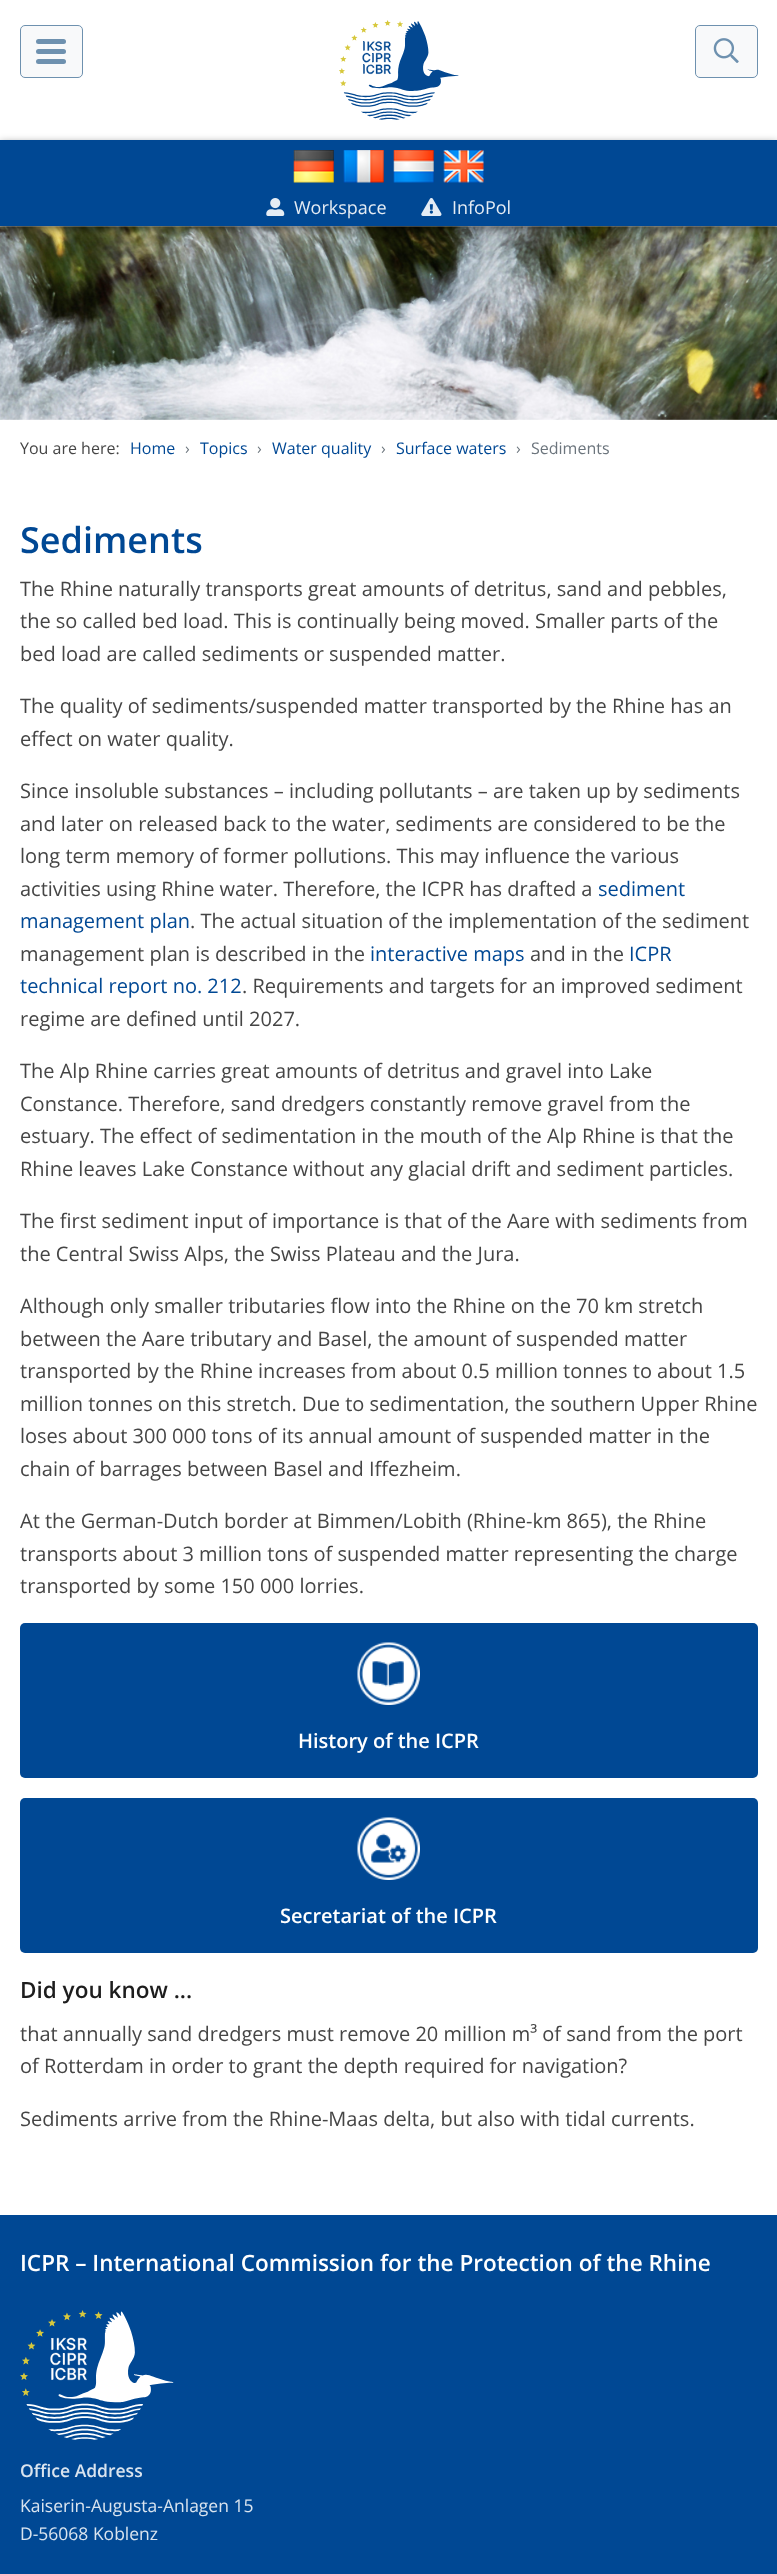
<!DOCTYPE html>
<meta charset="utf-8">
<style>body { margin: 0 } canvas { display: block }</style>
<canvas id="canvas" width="777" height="2574"></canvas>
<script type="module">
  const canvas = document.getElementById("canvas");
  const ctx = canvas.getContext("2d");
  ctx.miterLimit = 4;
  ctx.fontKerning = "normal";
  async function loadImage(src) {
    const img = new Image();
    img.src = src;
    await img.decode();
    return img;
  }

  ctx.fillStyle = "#ffffff";
  ctx.fillRect(0, 0, 777, 2574);
  ctx.fillStyle = "#f8f9fa";
  ctx.beginPath();
  ctx.roundRect(20.5, 25.5, 62, 52, 4.5);
  ctx.fill();
  ctx.strokeStyle = "#6e91af";
  ctx.stroke();
  ctx.fillStyle = "#6e91af";
  ctx.beginPath();
  ctx.roundRect(36, 49, 30, 5, 2.5);
  ctx.fill();
  ctx.beginPath();
  ctx.roundRect(36, 39, 30, 5, 2.5);
  ctx.fill();
  ctx.beginPath();
  ctx.roundRect(36, 59, 30, 5, 2.5);
  ctx.fill();
  ctx.drawImage(await loadImage("img1.png"), 339, 20, 120, 100);
  ctx.fillStyle = "#f8f9fa";
  ctx.beginPath();
  ctx.roundRect(695.5, 25.5, 62, 52, 4.5);
  ctx.fill();
  ctx.stroke();
  ctx.drawImage(await loadImage("img2.png"), 713, 38, 26, 25);
  ctx.drawImage(await loadImage("img9.png"), 0, 226, 777, 194);
  ctx.fillStyle = "rgba(0, 0, 0, 0.5)";
  ctx.filter = "blur(4px)";
  ctx.beginPath();
  ctx.rect(0, 143, 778, 86);
  ctx.fill();
  ctx.filter = "none";
  ctx.fillStyle = "#004894";
  ctx.fillRect(0, 140, 777, 86);
  ctx.drawImage(await loadImage("img3.png"), 293, 150, 41, 33);
  ctx.drawImage(await loadImage("img4.png"), 343, 150, 41, 33);
  ctx.drawImage(await loadImage("img5.png"), 393, 150, 41, 33);
  ctx.drawImage(await loadImage("img6.png"), 443, 150, 41, 33);
  ctx.drawImage(await loadImage("img7.png"), 266, 198, 19, 18);
  ctx.font = "18px Open Sans";
  ctx.fillStyle = "#e5ecf4";
  ctx.fillText("Workspace", 294, 214);
  ctx.drawImage(await loadImage("img8.png"), 421, 198, 21, 18);
  ctx.fillText("InfoPol", 452, 214);
  ctx.font = "16px Open Sans";
  ctx.fillStyle = "#454545";
  ctx.fillText("You are here:", 20, 454);
  ctx.fillStyle = "#004894";
  ctx.fillText("Home", 130, 454);
  ctx.fillStyle = "#6c757d";
  ctx.fillText("›", 185, 454);
  ctx.fillStyle = "#004894";
  ctx.fillText("Topics", 200, 454);
  ctx.fillStyle = "#6c757d";
  ctx.fillText("›", 257, 454);
  ctx.fillStyle = "#004894";
  ctx.fillText("Water quality", 272, 454);
  ctx.fillStyle = "#6c757d";
  ctx.fillText("›", 381, 454);
  ctx.fillStyle = "#004894";
  ctx.fillText("Surface waters", 396, 454);
  ctx.fillStyle = "#6c757d";
  ctx.fillText("›", 516, 454);
  ctx.fillText("Sediments", 531, 454);
  ctx.font = "600 36px Open Sans";
  ctx.fillStyle = "#004894";
  ctx.fillText("Sediments", 20, 553);
  ctx.font = "20px Open Sans";
  ctx.fillStyle = "#454545";
  ctx.fillText("The Rhine naturally transports great amounts of detritus, sand and pebbles,", 20, 596);
  ctx.fillText("the so called bed load. This is continually being moved. Smaller parts of the", 20, 628);
  ctx.fillText("bed load are called sediments or suspended matter.", 20, 661);
  ctx.fillText("The quality of sediments/suspended matter transported by the Rhine has an", 20, 713);
  ctx.fillText("effect on water quality.", 20, 746);
  ctx.fillText("Since insoluble substances – including pollutants – are taken up by sediments", 20, 798);
  ctx.fillText("and later on released back to the water, sediments are considered to be the", 20, 831);
  ctx.fillText("long term memory of former pollutions. This may influence the various", 20, 863);
  ctx.fillText("activities using Rhine water. Therefore, the ICPR has drafted a", 20, 896);
  ctx.fillStyle = "#004894";
  ctx.fillText("sediment", 598, 896);
  ctx.fillText("management plan", 20, 928);
  ctx.fillStyle = "#454545";
  ctx.fillText(". The actual situation of the implementation of the sediment", 190, 928);
  ctx.fillText("management plan is described in the", 20, 961);
  ctx.fillStyle = "#004894";
  ctx.fillText("interactive maps", 370, 961);
  ctx.fillStyle = "#454545";
  ctx.fillText("and in the", 530, 961);
  ctx.fillStyle = "#004894";
  ctx.fillText("ICPR", 629, 961);
  ctx.fillText("technical report no. 212", 20, 993);
  ctx.fillStyle = "#454545";
  ctx.fillText(". Requirements and targets for an improved sediment", 242, 993);
  ctx.fillText("regime are defined until 2027.", 20, 1026);
  ctx.fillText("The Alp Rhine carries great amounts of detritus and gravel into Lake", 20, 1078);
  ctx.fillText("Constance. Therefore, sand dredgers constantly remove gravel from the", 20, 1111);
  ctx.fillText("estuary. The effect of sedimentation in the mouth of the Alp Rhine is that the", 20, 1143);
  ctx.fillText("Rhine leaves Lake Constance without any glacial drift and sediment particles.", 20, 1176);
  ctx.fillText("The first sediment input of importance is that of the Aare with sediments from", 20, 1228);
  ctx.fillText("the Central Swiss Alps, the Swiss Plateau and the Jura.", 20, 1261);
  ctx.fillText("Although only smaller tributaries flow into the Rhine on the 70 km stretch", 20, 1313);
  ctx.fillText("between the Aare tributary and Basel, the amount of suspended matter", 20, 1346);
  ctx.fillText("transported by the Rhine increases from about 0.5 million tonnes to about 1.5", 20, 1378);
  ctx.fillText("million tonnes on this stretch. Due to sedimentation, the southern Upper Rhine", 20, 1411);
  ctx.fillText("loses about 300 000 tons of its annual amount of suspended matter in the", 20, 1443);
  ctx.fillText("chain of barrages between Basel and Iffezheim.", 20, 1476);
  ctx.fillText("At the German-Dutch border at Bimmen/Lobith (Rhine-km 865), the Rhine", 20, 1528);
  ctx.fillText("transports about 3 million tons of suspended matter representing the charge", 20, 1561);
  ctx.fillText("transported by some 150 000 lorries.", 20, 1593);
  ctx.fillStyle = "#004894";
  ctx.beginPath();
  ctx.roundRect(20, 1623, 738, 155, 5);
  ctx.fill();
  ctx.drawImage(await loadImage("img10.png"), 357, 1642, 63, 63);
  ctx.font = "600 20px Open Sans";
  ctx.fillStyle = "#ffffff";
  ctx.fillText("History of the ICPR", 298, 1748);
  ctx.fillStyle = "#004894";
  ctx.beginPath();
  ctx.roundRect(20, 1798, 738, 155, 5);
  ctx.fill();
  ctx.drawImage(await loadImage("img11.png"), 357, 1817, 63, 63);
  ctx.fillStyle = "#ffffff";
  ctx.fillText("Secretariat of the ICPR", 280, 1923);
  ctx.font = "600 22.5px Open Sans";
  ctx.fillStyle = "#1d1d1d";
  ctx.fillText("Did you know ...", 20, 1998);
  ctx.font = "20px Open Sans";
  ctx.fillStyle = "#454545";
  ctx.fillText("that annually sand dredgers must remove 20 million m³ of sand from the port", 20, 2041);
  ctx.fillText("of Rotterdam in order to grant the depth required for navigation?", 20, 2073);
  ctx.fillText("Sediments arrive from the Rhine-Maas delta, but also with tidal currents.", 20, 2126);
  ctx.fillStyle = "#004894";
  ctx.fillRect(0, 2215, 777, 359);
  ctx.font = "600 22.5px Open Sans";
  ctx.fillStyle = "#ffffff";
  ctx.fillText("ICPR – International Commission for the Protection of the Rhine", 20, 2271);
  ctx.drawImage(await loadImage("img12.png"), 20, 2310, 154, 130);
  ctx.font = "600 17.5px Open Sans";
  ctx.fillStyle = "#d9e4ef";
  ctx.fillText("Office Address", 20, 2477);
  ctx.font = "17.5px Open Sans";
  ctx.fillText("Kaiserin-Augusta-Anlagen 15", 20, 2512);
  ctx.fillText("D-56068 Koblenz", 20, 2540);
</script>
